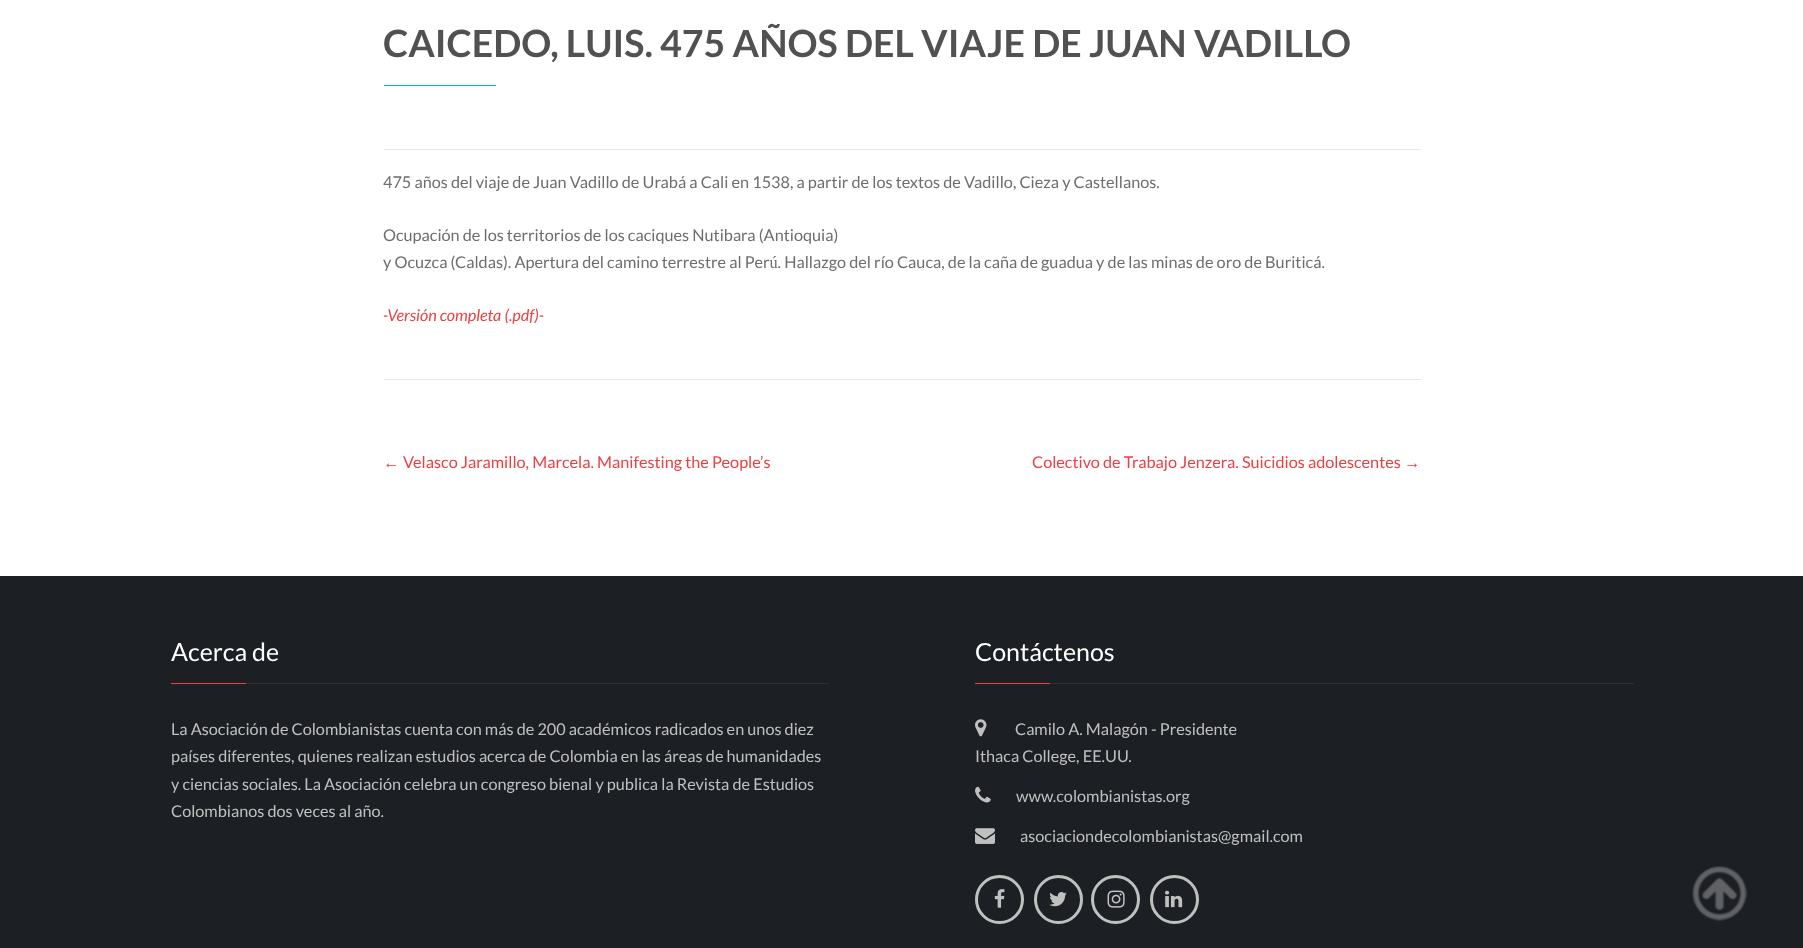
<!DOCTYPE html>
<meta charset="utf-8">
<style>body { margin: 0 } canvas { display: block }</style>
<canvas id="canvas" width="1803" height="948"></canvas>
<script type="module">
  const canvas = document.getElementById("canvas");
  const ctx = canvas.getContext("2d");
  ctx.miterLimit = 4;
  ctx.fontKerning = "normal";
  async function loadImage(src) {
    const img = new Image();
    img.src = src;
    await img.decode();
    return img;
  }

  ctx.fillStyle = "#ffffff";
  ctx.fillRect(0, 0, 1803, 948);
  ctx.font = "bold 37.5px Lato";
  ctx.fillStyle = "#515151";
  ctx.fillText("CAICEDO, LUIS. 475 AÑOS DEL VIAJE DE JUAN VADILLO", 383, 57);
  ctx.fillStyle = "#00aadd";
  ctx.fillRect(384, 85, 112, 1);
  ctx.fillStyle = "#e8e8e8";
  ctx.fillRect(384, 149, 1037, 1);
  ctx.font = "16.25px Lato";
  ctx.fillStyle = "#6e6d6d";
  ctx.fillText("475 años del viaje de Juan Vadillo de Urabá a Cali en 1538, a partir de los textos de Vadillo, Cieza y Castellanos.", 383, 188);
  ctx.fillText("Ocupación de los territorios de los caciques Nutibara (Antioquia)", 383, 241);
  ctx.fillText("y Ocuzca (Caldas). Apertura del camino terrestre al Perú. Hallazgo del río Cauca, de la caña de guadua y de las minas de oro de Buriticá.", 383, 268);
  ctx.font = "italic 16.25px Lato";
  ctx.fillStyle = "#ed3f41";
  ctx.fillText("-Versión completa (.pdf)-", 383, 321);
  ctx.fillStyle = "#e8e8e8";
  ctx.fillRect(384, 379, 1037, 1);
  ctx.font = "16.25px Liberation Sans";
  ctx.fillStyle = "#ed3f41";
  ctx.fillText("←", 383, 468);
  ctx.font = "16.25px Lato";
  ctx.fillText("Velasco Jaramillo, Marcela. Manifesting the People’s", 403, 468);
  ctx.fillText("Colectivo de Trabajo Jenzera. Suicidios adolescentes", 1032, 468);
  ctx.font = "16.25px Liberation Sans";
  ctx.fillText("→", 1404, 468);
  ctx.fillStyle = "#1c1f24";
  ctx.fillRect(0, 576, 1803, 372);
  ctx.fillStyle = "#303030";
  ctx.fillRect(246, 683, 583, 1);
  ctx.font = "25px Lato";
  ctx.fillStyle = "#ffffff";
  ctx.fillText("Acerca de", 171, 661);
  ctx.fillStyle = "#ed3f41";
  ctx.fillRect(171, 683, 75, 1);
  ctx.font = "16.25px Lato";
  ctx.fillStyle = "#c1c0c0";
  ctx.fillText("La Asociación de Colombianistas cuenta con más de 200 académicos radicados en unos diez", 171, 735);
  ctx.fillText("países diferentes, quienes realizan estudios acerca de Colombia en las áreas de humanidades", 171, 762);
  ctx.fillText("y ciencias sociales. La Asociación celebra un congreso bienal y publica la Revista de Estudios", 171, 790);
  ctx.fillText("Colombianos dos veces al año.", 171, 817);
  ctx.fillStyle = "#303030";
  ctx.fillRect(1050, 683, 584, 1);
  ctx.font = "25px Lato";
  ctx.fillStyle = "#ffffff";
  ctx.fillText("Contáctenos", 975, 661);
  ctx.fillStyle = "#ed3f41";
  ctx.fillRect(975, 683, 75, 1);
  ctx.drawImage(await loadImage("img1.png"), 975, 719, 12, 18);
  ctx.font = "16.25px Lato";
  ctx.fillStyle = "#c1c0c0";
  ctx.fillText("Camilo A. Malagón - Presidente", 1015, 735);
  ctx.fillText("Ithaca College, EE.UU.", 975, 762);
  ctx.drawImage(await loadImage("img2.png"), 975, 786, 16, 17);
  ctx.fillText("www.colombianistas.org", 1016, 802);
  ctx.drawImage(await loadImage("img3.png"), 975, 828, 20, 16);
  ctx.fillText("asociaciondecolombianistas@gmail.com", 1020, 842);
  ctx.beginPath();
  ctx.arc(999.5, 899.5, 23, 0, Math.PI * 2);
  ctx.strokeStyle = "#c1c0c0";
  ctx.lineWidth = 3;
  ctx.stroke();
  ctx.drawImage(await loadImage("img4.png"), 994, 889, 11, 19);
  ctx.beginPath();
  ctx.arc(1058.5, 899.5, 23, 0, Math.PI * 2);
  ctx.stroke();
  ctx.drawImage(await loadImage("img5.png"), 1049, 892, 18, 15);
  ctx.beginPath();
  ctx.arc(1115.5, 899.5, 23, 0, Math.PI * 2);
  ctx.stroke();
  ctx.drawImage(await loadImage("img6.png"), 1107, 890, 18, 18);
  ctx.beginPath();
  ctx.arc(1174.5, 899.5, 23, 0, Math.PI * 2);
  ctx.stroke();
  ctx.drawImage(await loadImage("img7.png"), 1165, 890, 18, 18);
  ctx.drawImage(await loadImage("img8.png"), 1692, 866, 56, 56);
</script>
